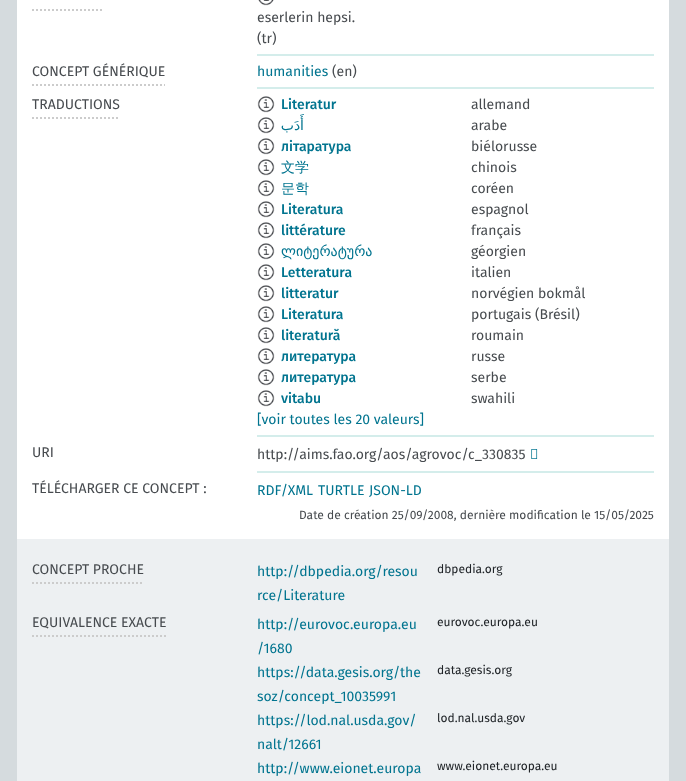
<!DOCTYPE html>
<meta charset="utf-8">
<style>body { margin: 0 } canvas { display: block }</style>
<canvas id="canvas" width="686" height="781"></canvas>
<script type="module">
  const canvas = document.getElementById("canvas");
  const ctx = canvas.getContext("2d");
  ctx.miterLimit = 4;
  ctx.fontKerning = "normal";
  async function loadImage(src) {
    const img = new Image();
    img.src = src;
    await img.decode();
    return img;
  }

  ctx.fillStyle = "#d5dbde";
  ctx.fillRect(0, 0, 686, 781);
  ctx.fillStyle = "#ffffff";
  ctx.fillRect(17, 0, 652, 539);
  ctx.beginPath();
  ctx.moveTo(32, 10);
  ctx.lineTo(104, 10);
  ctx.strokeStyle = "#cccccc";
  ctx.lineWidth = 2;
  ctx.setLineDash([2, 2]);
  ctx.stroke();
  ctx.fillStyle = "#d4edeb";
  ctx.fillRect(257, 54, 397, 2);
  ctx.drawImage(await loadImage("img1.png"), 258, 0, 16, 6);
  ctx.font = "14px Fira Sans";
  ctx.fillStyle = "#474b4f";
  ctx.fillText("eserlerin hepsi.", 257, 22);
  ctx.fillText("(tr)", 257, 43);
  ctx.beginPath();
  ctx.moveTo(32, 85);
  ctx.lineTo(165, 85);
  ctx.stroke();
  ctx.fillText("CONCEPT GÉNÉRIQUE", 32, 76);
  ctx.fillStyle = "#d4edeb";
  ctx.fillRect(257, 87, 397, 2);
  ctx.fillStyle = "#00748f";
  ctx.fillText("humanities", 257, 76);
  ctx.fillStyle = "#474b4f";
  ctx.fillText("(en)", 332, 76);
  ctx.beginPath();
  ctx.moveTo(32, 118);
  ctx.lineTo(120, 118);
  ctx.stroke();
  ctx.fillText("TRADUCTIONS", 32, 109);
  ctx.fillStyle = "#d4edeb";
  ctx.fillRect(257, 435, 397, 2);
  ctx.drawImage(await loadImage("img2.png"), 257, 96, 18, 17);
  ctx.font = "500 14px Fira Sans";
  ctx.fillStyle = "#00748f";
  ctx.fillText("Literatur", 281, 109);
  ctx.font = "14px Fira Sans";
  ctx.fillStyle = "#474b4f";
  ctx.fillText("allemand", 471, 109);
  ctx.drawImage(await loadImage("img2.png"), 257, 117, 18, 17);
  ctx.direction = "rtl";
  ctx.font = "14px DejaVu Sans";
  ctx.fillStyle = "#00748f";
  ctx.fillText("أَدَب", 304, 130);
  ctx.direction = "ltr";
  ctx.font = "14px Fira Sans";
  ctx.fillStyle = "#474b4f";
  ctx.fillText("arabe", 471, 130);
  ctx.drawImage(await loadImage("img2.png"), 257, 138, 18, 17);
  ctx.font = "500 14px Fira Sans";
  ctx.fillStyle = "#00748f";
  ctx.fillText("літаратура", 281, 151);
  ctx.font = "14px Fira Sans";
  ctx.fillStyle = "#474b4f";
  ctx.fillText("biélorusse", 471, 151);
  ctx.drawImage(await loadImage("img2.png"), 257, 159, 18, 17);
  ctx.font = "500 14px WenQuanYi Zen Hei";
  ctx.fillStyle = "#00748f";
  ctx.fillText("文学", 281, 172);
  ctx.font = "14px Fira Sans";
  ctx.fillStyle = "#474b4f";
  ctx.fillText("chinois", 471, 172);
  ctx.drawImage(await loadImage("img2.png"), 257, 180, 18, 17);
  ctx.font = "500 14px WenQuanYi Zen Hei";
  ctx.fillStyle = "#00748f";
  ctx.fillText("문학", 281, 193);
  ctx.font = "14px Fira Sans";
  ctx.fillStyle = "#474b4f";
  ctx.fillText("coréen", 471, 193);
  ctx.drawImage(await loadImage("img2.png"), 257, 201, 18, 17);
  ctx.font = "500 14px Fira Sans";
  ctx.fillStyle = "#00748f";
  ctx.fillText("Literatura", 281, 214);
  ctx.font = "14px Fira Sans";
  ctx.fillStyle = "#474b4f";
  ctx.fillText("espagnol", 471, 214);
  ctx.drawImage(await loadImage("img2.png"), 257, 222, 18, 17);
  ctx.font = "500 14px Fira Sans";
  ctx.fillStyle = "#00748f";
  ctx.fillText("littérature", 281, 235);
  ctx.font = "14px Fira Sans";
  ctx.fillStyle = "#474b4f";
  ctx.fillText("français", 471, 235);
  ctx.drawImage(await loadImage("img3.png"), 257, 243, 18, 17);
  ctx.font = "14px DejaVu Sans";
  ctx.fillStyle = "#00748f";
  ctx.fillText("ლიტერატურა", 281, 256);
  ctx.font = "14px Fira Sans";
  ctx.fillStyle = "#474b4f";
  ctx.fillText("géorgien", 471, 256);
  ctx.drawImage(await loadImage("img2.png"), 257, 264, 18, 17);
  ctx.font = "500 14px Fira Sans";
  ctx.fillStyle = "#00748f";
  ctx.fillText("Letteratura", 281, 277);
  ctx.font = "14px Fira Sans";
  ctx.fillStyle = "#474b4f";
  ctx.fillText("italien", 471, 277);
  ctx.drawImage(await loadImage("img2.png"), 257, 285, 18, 17);
  ctx.font = "500 14px Fira Sans";
  ctx.fillStyle = "#00748f";
  ctx.fillText("litteratur", 281, 298);
  ctx.font = "14px Fira Sans";
  ctx.fillStyle = "#474b4f";
  ctx.fillText("norvégien bokmål", 471, 298);
  ctx.drawImage(await loadImage("img2.png"), 257, 306, 18, 17);
  ctx.font = "500 14px Fira Sans";
  ctx.fillStyle = "#00748f";
  ctx.fillText("Literatura", 281, 319);
  ctx.font = "14px Fira Sans";
  ctx.fillStyle = "#474b4f";
  ctx.fillText("portugais (Brésil)", 471, 319);
  ctx.drawImage(await loadImage("img2.png"), 257, 327, 18, 17);
  ctx.font = "500 14px Fira Sans";
  ctx.fillStyle = "#00748f";
  ctx.fillText("literatură", 281, 340);
  ctx.font = "14px Fira Sans";
  ctx.fillStyle = "#474b4f";
  ctx.fillText("roumain", 471, 340);
  ctx.drawImage(await loadImage("img2.png"), 257, 348, 18, 17);
  ctx.font = "500 14px Fira Sans";
  ctx.fillStyle = "#00748f";
  ctx.fillText("литература", 281, 361);
  ctx.font = "14px Fira Sans";
  ctx.fillStyle = "#474b4f";
  ctx.fillText("russe", 471, 361);
  ctx.drawImage(await loadImage("img2.png"), 257, 369, 18, 17);
  ctx.font = "500 14px Fira Sans";
  ctx.fillStyle = "#00748f";
  ctx.fillText("литература", 281, 382);
  ctx.font = "14px Fira Sans";
  ctx.fillStyle = "#474b4f";
  ctx.fillText("serbe", 471, 382);
  ctx.drawImage(await loadImage("img2.png"), 257, 390, 18, 17);
  ctx.font = "500 14px Fira Sans";
  ctx.fillStyle = "#00748f";
  ctx.fillText("vitabu", 281, 403);
  ctx.font = "14px Fira Sans";
  ctx.fillStyle = "#474b4f";
  ctx.fillText("swahili", 471, 403);
  ctx.fillStyle = "#00748f";
  ctx.fillText("[voir toutes les 20 valeurs]", 257, 424);
  ctx.fillStyle = "#474b4f";
  ctx.fillText("URI", 32, 457);
  ctx.fillStyle = "#d4edeb";
  ctx.fillRect(257, 471, 397, 2);
  ctx.fillStyle = "#474b4f";
  ctx.fillText("http://aims.fao.org/aos/agrovoc/c_330835", 257, 459);
  ctx.drawImage(await loadImage("img4.png"), 531, 449, 7, 10);
  ctx.fillText("TÉLÉCHARGER CE CONCEPT :", 32, 493);
  ctx.fillStyle = "#00748f";
  ctx.fillText("RDF/XML", 257, 495);
  ctx.fillText("TURTLE", 318, 495);
  ctx.fillText("JSON-LD", 369, 495);
  ctx.font = "12px Fira Sans";
  ctx.fillStyle = "#474b4f";
  ctx.fillText("Date de création 25/09/2008, dernière modification le 15/05/2025", 299, 519);
  ctx.fillStyle = "#edf0f2";
  ctx.fillRect(17, 539, 652, 242);
  ctx.beginPath();
  ctx.moveTo(32, 583);
  ctx.lineTo(144, 583);
  ctx.stroke();
  ctx.font = "14px Fira Sans";
  ctx.fillStyle = "#474b4f";
  ctx.fillText("CONCEPT PROCHE", 32, 574);
  ctx.fillStyle = "#00748f";
  ctx.fillText("http://dbpedia.org/resou", 257, 576);
  ctx.fillText("rce/Literature", 257, 600);
  ctx.font = "12px Fira Sans";
  ctx.fillStyle = "#212529";
  ctx.fillText("dbpedia.org", 437, 573);
  ctx.beginPath();
  ctx.moveTo(32, 636);
  ctx.lineTo(167, 636);
  ctx.stroke();
  ctx.font = "14px Fira Sans";
  ctx.fillStyle = "#474b4f";
  ctx.fillText("EQUIVALENCE EXACTE", 32, 627);
  ctx.fillStyle = "#00748f";
  ctx.fillText("http://eurovoc.europa.eu", 257, 629);
  ctx.fillText("/1680", 257, 653);
  ctx.font = "12px Fira Sans";
  ctx.fillStyle = "#212529";
  ctx.fillText("eurovoc.europa.eu", 437, 626);
  ctx.font = "14px Fira Sans";
  ctx.fillStyle = "#00748f";
  ctx.fillText("https://data.gesis.org/the", 257, 677);
  ctx.fillText("soz/concept_10035991", 257, 701);
  ctx.font = "12px Fira Sans";
  ctx.fillStyle = "#212529";
  ctx.fillText("data.gesis.org", 437, 674);
  ctx.font = "14px Fira Sans";
  ctx.fillStyle = "#00748f";
  ctx.fillText("https://lod.nal.usda.gov/", 257, 725);
  ctx.fillText("nalt/12661", 257, 749);
  ctx.font = "12px Fira Sans";
  ctx.fillStyle = "#212529";
  ctx.fillText("lod.nal.usda.gov", 437, 722);
  ctx.font = "14px Fira Sans";
  ctx.fillStyle = "#00748f";
  ctx.fillText("http://www.eionet.europa", 257, 773);
  ctx.font = "12px Fira Sans";
  ctx.fillStyle = "#212529";
  ctx.fillText("www.eionet.europa.eu", 437, 770);
</script>
